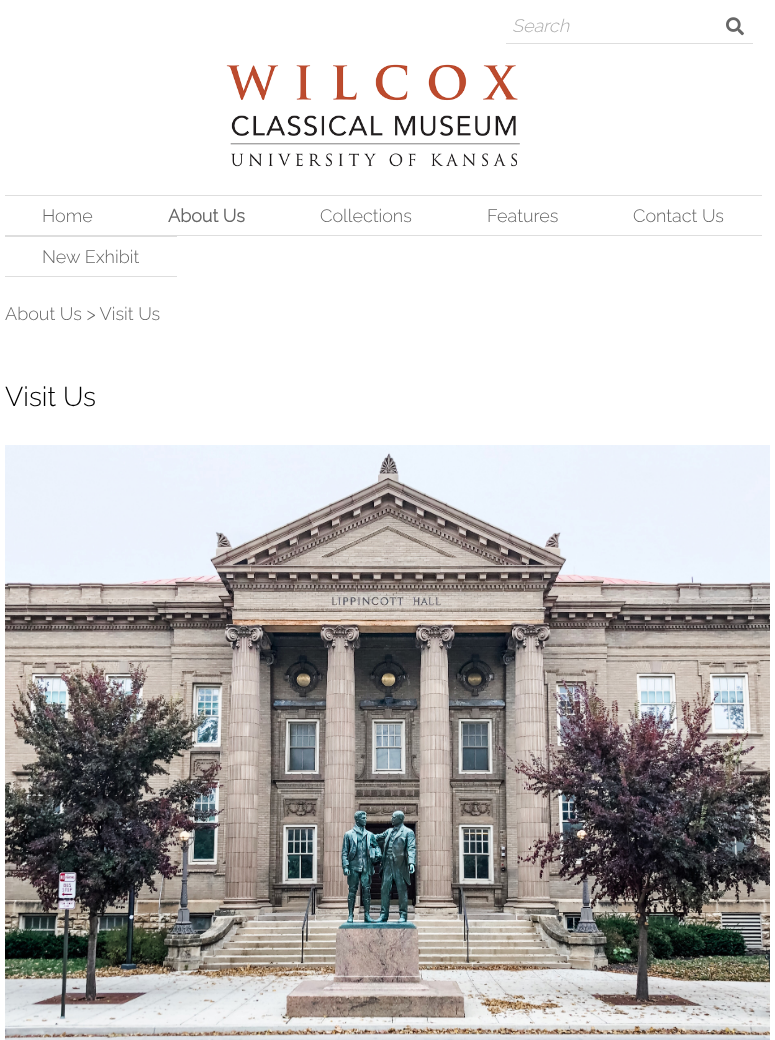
<!DOCTYPE html>
<meta charset="utf-8">
<style>body { margin: 0 } canvas { display: block }</style>
<canvas id="canvas" width="775" height="1040"></canvas>
<script type="module">
  const canvas = document.getElementById("canvas");
  const ctx = canvas.getContext("2d");
  ctx.miterLimit = 4;
  ctx.fontKerning = "normal";
  async function loadImage(src) {
    const img = new Image();
    img.src = src;
    await img.decode();
    return img;
  }

  ctx.fillStyle = "#ffffff";
  ctx.fillRect(0, 0, 775, 1040);
  ctx.fillStyle = "#dedede";
  ctx.fillRect(506, 43, 247, 1);
  ctx.font = "italic 100 18px Raleway";
  ctx.fillStyle = "#adadad";
  ctx.fillText("Search", 512, 32);
  ctx.drawImage(await loadImage("img1.png"), 726, 17, 18, 19);
  ctx.drawImage(await loadImage("img2.png"), 226, 64, 294, 103);
  ctx.fillStyle = "#dedede";
  ctx.fillRect(5, 195, 757, 1);
  ctx.fillRect(5, 235, 757, 1);
  ctx.font = "100 18px Raleway";
  ctx.fillStyle = "#676767";
  ctx.fillText("Home", 42, 222);
  ctx.font = "bold 18px Raleway";
  ctx.fillText("About Us", 168, 222);
  ctx.font = "100 18px Raleway";
  ctx.fillText("Collections", 320, 222);
  ctx.fillText("Features", 487, 222);
  ctx.fillText("Contact Us", 633, 222);
  ctx.fillStyle = "#dedede";
  ctx.fillRect(5, 236, 172, 1);
  ctx.fillRect(5, 276, 172, 1);
  ctx.fillStyle = "#676767";
  ctx.fillText("New Exhibit", 42, 263);
  ctx.fillText("About Us > Visit Us", 5, 320);
  ctx.font = "100 27px Raleway";
  ctx.fillStyle = "#000000";
  ctx.fillText("Visit Us", 5, 406);
  ctx.drawImage(await loadImage("img3.png"), 5, 445, 765, 595);
</script>
